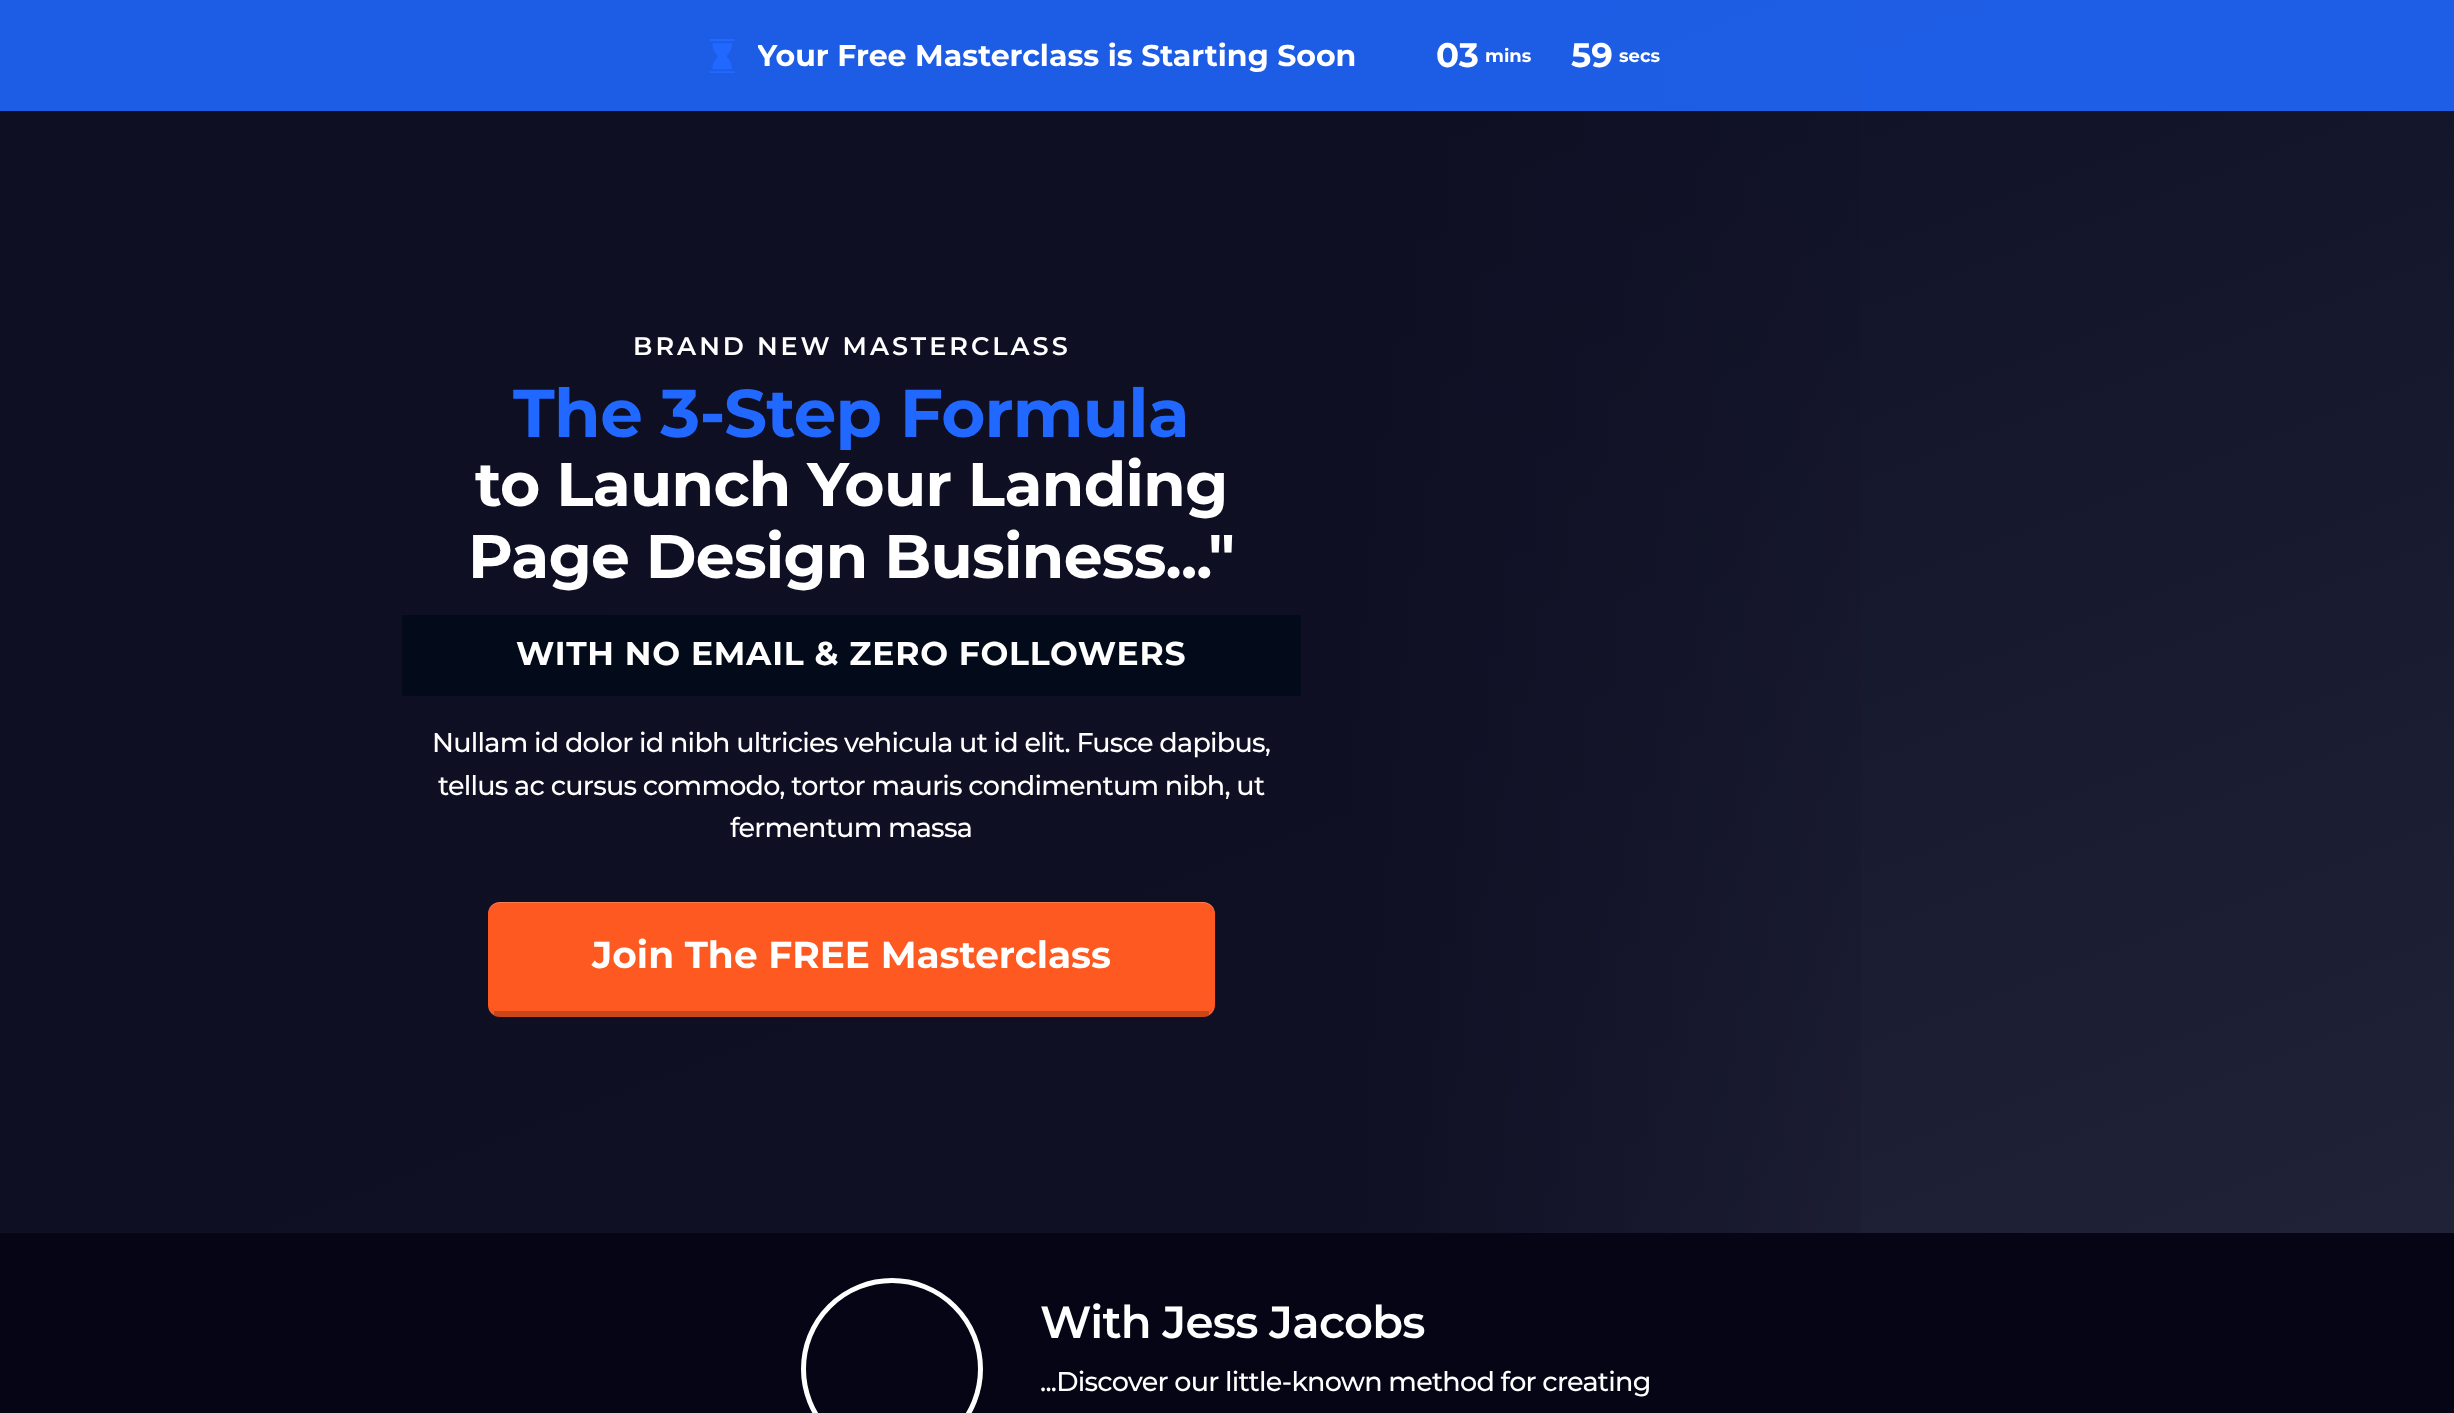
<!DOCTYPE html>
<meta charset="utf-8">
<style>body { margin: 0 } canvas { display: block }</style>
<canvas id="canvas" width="2454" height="1413"></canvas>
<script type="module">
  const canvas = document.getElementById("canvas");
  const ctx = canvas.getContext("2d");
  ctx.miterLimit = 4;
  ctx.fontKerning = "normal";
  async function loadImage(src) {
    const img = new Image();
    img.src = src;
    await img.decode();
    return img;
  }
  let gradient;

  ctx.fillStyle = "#050516";
  ctx.fillRect(0, 0, 2454, 1413);
  gradient = ctx.createLinearGradient(863, -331, 1591, 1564);
  gradient.addColorStop(0, "#080a1f");
  gradient.addColorStop(1, "#202238");
  ctx.fillStyle = gradient;
  ctx.fillRect(0, 0, 2454, 1233);
  gradient = ctx.createLinearGradient(0, 617, 2454, 616);
  gradient.addColorStop(0.55, "rgba(15, 15, 35, 0.93)");
  gradient.addColorStop(0.79, "rgba(15, 15, 35, 0)");
  ctx.fillStyle = gradient;
  ctx.fillRect(0, 0, 1861, 1233);
  ctx.fillStyle = "rgba(32, 104, 255, 0.88)";
  ctx.fillRect(0, 0, 2454, 111);
  ctx.drawImage(await loadImage("img1.png"), 709, 39, 26, 34);
  ctx.save();
  ctx.beginPath();
  ctx.rect(758, 33, 598, 45);
  ctx.clip();
  ctx.font = "bold 30px Montserrat";
  ctx.fillStyle = "#ffffff";
  ctx.fillText("Your Free Masterclass is Starting Soon", 757, 66);
  ctx.restore();
  ctx.font = "bold 34px Montserrat";
  ctx.fillStyle = "#ffffff";
  ctx.fillText("03", 1436, 67);
  ctx.font = "bold 18px Montserrat";
  ctx.fillText("mins", 1485, 62);
  ctx.font = "bold 34px Montserrat";
  ctx.fillText("59", 1571, 67);
  ctx.font = "bold 18px Montserrat";
  ctx.fillText("secs", 1619, 62);
  ctx.letterSpacing = "3px";
  ctx.font = "600 25.5px Montserrat";
  ctx.fillText("BRAND NEW MASTERCLASS", 633, 355);
  ctx.letterSpacing = "-0.75px";
  ctx.font = "bold 67.5px Montserrat";
  ctx.fillStyle = "#2068ff";
  ctx.fillText("The 3-Step Formula", 513, 437);
  ctx.font = "bold 61.5px Montserrat";
  ctx.fillStyle = "#ffffff";
  ctx.fillText("to Launch Your Landing", 475, 506);
  ctx.fillText("Page Design Business...\"", 468, 578);
  ctx.fillStyle = "#030a1a";
  ctx.fillRect(402, 615, 899, 81);
  ctx.letterSpacing = "0.75px";
  ctx.font = "bold 33px Montserrat";
  ctx.fillStyle = "#ffffff";
  ctx.fillText("WITH NO EMAIL & ZERO FOLLOWERS", 516, 665);
  ctx.letterSpacing = "-0.75px";
  ctx.font = "500 27px Montserrat";
  ctx.fillText("Nullam id dolor id nibh ultricies vehicula ut id elit. Fusce dapibus,", 432, 752);
  ctx.fillText("tellus ac cursus commodo, tortor mauris condimentum nibh, ut", 438, 795);
  ctx.fillText("fermentum massa", 730, 837);
  ctx.fillStyle = "#fd5920";
  ctx.beginPath();
  ctx.roundRect(488, 902, 727, 115, 12);
  ctx.fill();
  ctx.fillStyle = "rgba(255, 255, 255, 0.22)";
  ctx.beginPath();
  ctx.moveTo(500, 903);
  ctx.lineTo(1203, 903);
  ctx.bezierCurveTo(1210, 903, 1215, 908, 1215, 915);
  ctx.lineTo(1215, 914);
  ctx.bezierCurveTo(1215, 907, 1210, 902, 1203, 902);
  ctx.lineTo(500, 902);
  ctx.bezierCurveTo(493, 902, 488, 907, 488, 914);
  ctx.lineTo(488, 915);
  ctx.bezierCurveTo(488, 908, 493, 903, 500, 903);
  ctx.closePath();
  ctx.fill();
  ctx.save();
  ctx.beginPath();
  ctx.roundRect(488, 902, 727, 115, 12);
  ctx.clip();
  ctx.fillStyle = "rgba(0, 0, 0, 0.2)";
  ctx.fillRect(494, 1011, 715, 6);
  ctx.restore();
  ctx.letterSpacing = "0px";
  ctx.font = "bold 37.5px Montserrat";
  ctx.fillStyle = "#ffffff";
  ctx.fillText("Join The FREE Masterclass", 592, 968);
  ctx.beginPath();
  ctx.arc(892, 1369, 88.5, 0, Math.PI * 2);
  ctx.strokeStyle = "#ffffff";
  ctx.lineWidth = 5;
  ctx.stroke();
  ctx.letterSpacing = "-0.75px";
  ctx.font = "600 45px Montserrat";
  ctx.fillText("With Jess Jacobs", 1040, 1338);
  ctx.font = "500 27px Montserrat";
  ctx.fillText("...Discover our little-known method for creating", 1040, 1391);
</script>
